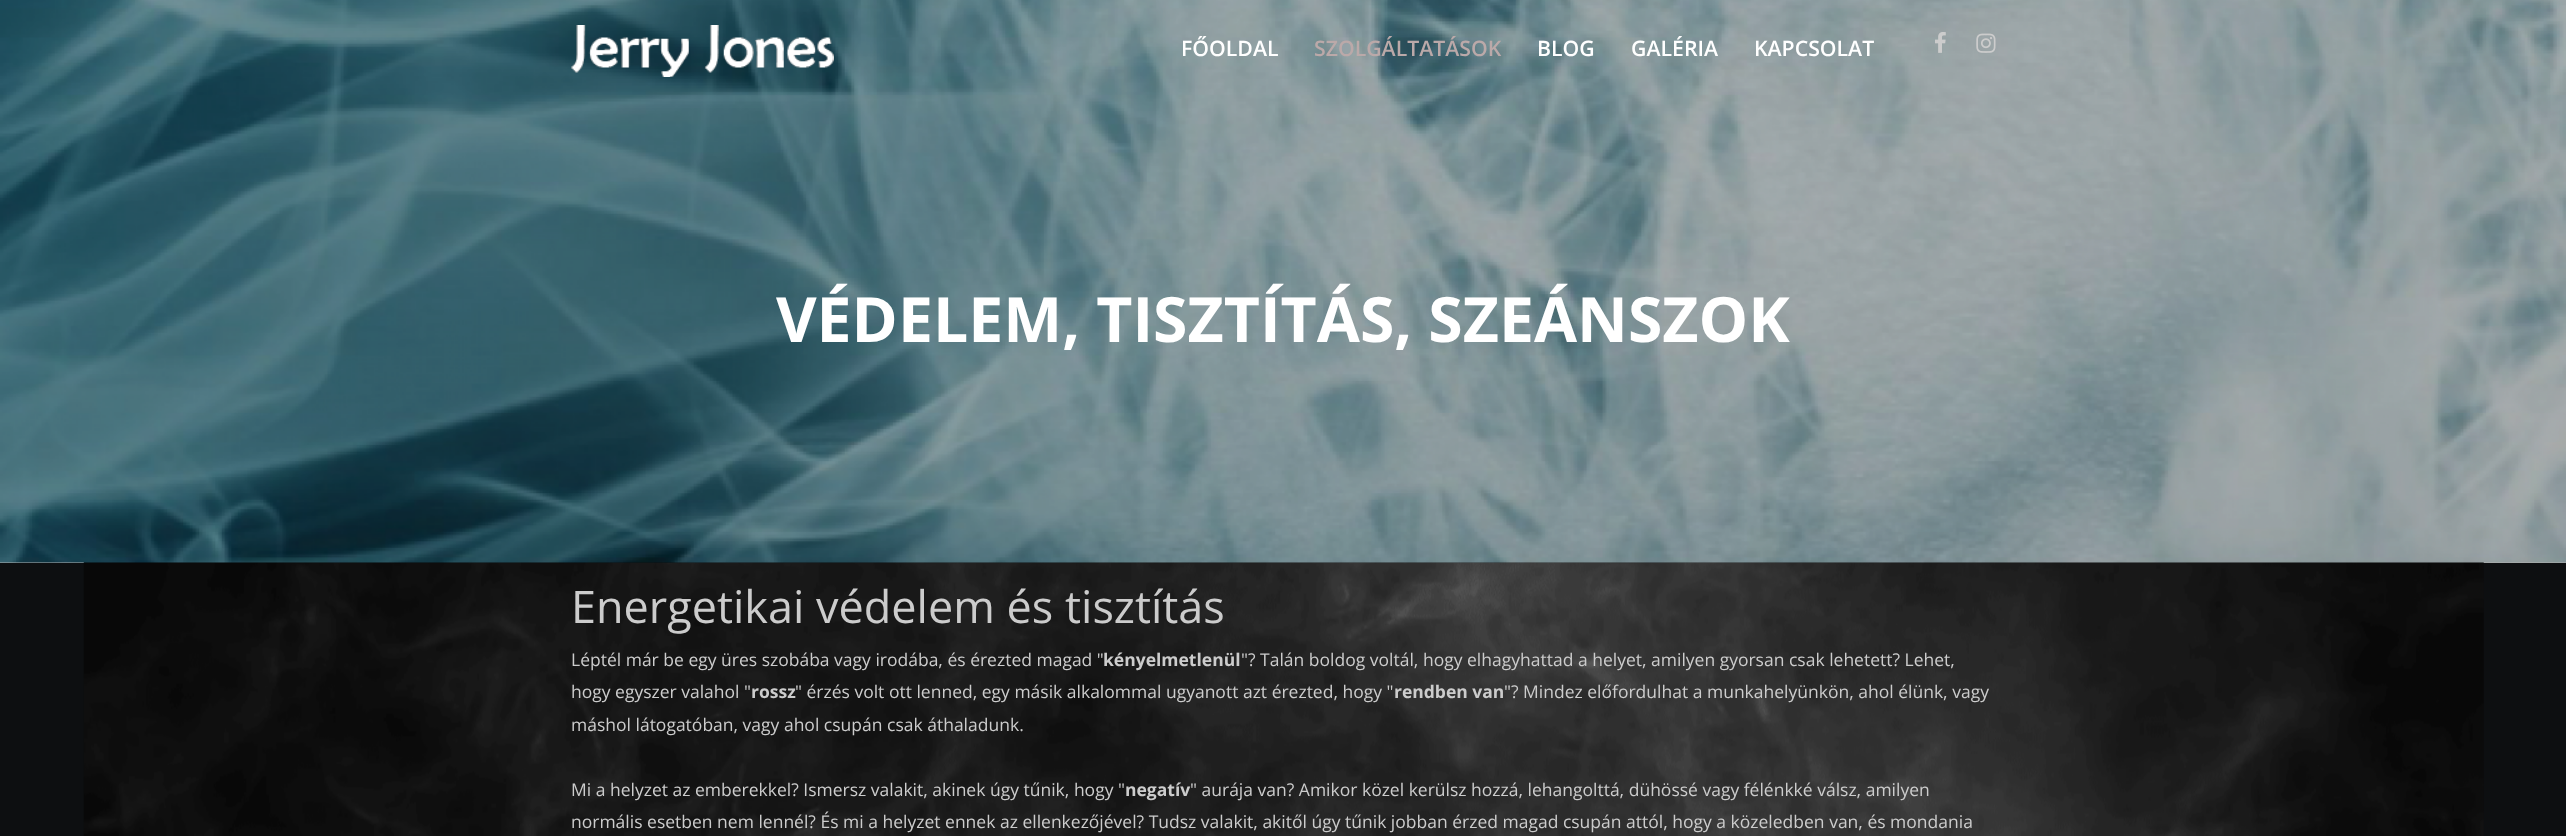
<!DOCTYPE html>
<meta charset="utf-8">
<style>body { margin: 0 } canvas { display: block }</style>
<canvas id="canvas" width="2566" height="836"></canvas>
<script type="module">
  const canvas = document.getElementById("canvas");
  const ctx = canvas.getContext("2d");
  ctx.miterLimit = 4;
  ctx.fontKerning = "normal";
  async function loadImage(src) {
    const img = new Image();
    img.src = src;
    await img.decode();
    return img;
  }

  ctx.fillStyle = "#ffffff";
  ctx.fillRect(0, 0, 2566, 836);
  ctx.fillStyle = "#0d0f11";
  ctx.fillRect(0, 563, 2566, 273);
  ctx.drawImage(await loadImage("img5.png"), 83, 562, 2401, 274);
  ctx.drawImage(await loadImage("img4.png"), 0, 0, 2566, 563);
  ctx.fillStyle = "rgba(0, 0, 0, 0.3)";
  ctx.fillRect(0, 0, 2566, 563);
  ctx.drawImage(await loadImage("img1.png"), 571, 25, 263, 52);
  ctx.font = "600 21.25px Open Sans";
  ctx.fillStyle = "#ffffff";
  ctx.fillText("FŐOLDAL", 1181, 56);
  ctx.fillStyle = "#bba9a9";
  ctx.fillText("SZOLGÁLTATÁSOK", 1314, 56);
  ctx.fillStyle = "#ffffff";
  ctx.fillText("BLOG", 1537, 56);
  ctx.fillText("GALÉRIA", 1631, 56);
  ctx.fillText("KAPCSOLAT", 1754, 56);
  ctx.drawImage(await loadImage("img2.png"), 1935, 32, 11, 21);
  ctx.drawImage(await loadImage("img3.png"), 1976, 33, 20, 20);
  ctx.font = "bold 62.5px Open Sans";
  ctx.fillText("VÉDELEM, TISZTÍTÁS, SZEÁNSZOK", 776, 342);
  ctx.font = "45px Open Sans";
  ctx.fillStyle = "#cccccc";
  ctx.fillText("Energetikai védelem és tisztítás", 571, 623);
  ctx.font = "17.5px Open Sans";
  ctx.fillText("Léptél már be egy üres szobába vagy irodába, és érezted magad \"", 571, 666);
  ctx.font = "bold 17.5px Open Sans";
  ctx.fillText("kényelmetlenül", 1103, 666);
  ctx.font = "17.5px Open Sans";
  ctx.fillText("\"? Talán boldog voltál, hogy elhagyhattad a helyet, amilyen gyorsan csak lehetett? Lehet,", 1241, 666);
  ctx.fillText("hogy egyszer valahol \"", 571, 698);
  ctx.font = "bold 17.5px Open Sans";
  ctx.fillText("rossz", 751, 698);
  ctx.font = "17.5px Open Sans";
  ctx.fillText("\" érzés volt ott lenned, egy másik alkalommal ugyanott azt érezted, hogy \"", 795, 698);
  ctx.font = "bold 17.5px Open Sans";
  ctx.fillText("rendben van", 1394, 698);
  ctx.font = "17.5px Open Sans";
  ctx.fillText("\"? Mindez előfordulhat a munkahelyünkön, ahol élünk, vagy", 1504, 698);
  ctx.fillText("máshol látogatóban, vagy ahol csupán csak áthaladunk.", 571, 731);
  ctx.fillText("Mi a helyzet az emberekkel? Ismersz valakit, akinek úgy tűnik, hogy \"", 571, 796);
  ctx.font = "bold 17.5px Open Sans";
  ctx.fillText("negatív", 1125, 796);
  ctx.font = "17.5px Open Sans";
  ctx.fillText("\" aurája van? Amikor közel kerülsz hozzá, lehangolttá, dühössé vagy félénkké válsz, amilyen", 1190, 796);
  ctx.fillText("normális esetben nem lennél? És mi a helyzet ennek az ellenkezőjével? Tudsz valakit, akitől úgy tűnik jobban érzed magad csupán attól, hogy a közeledben van, és mondania", 571, 828);
</script>
